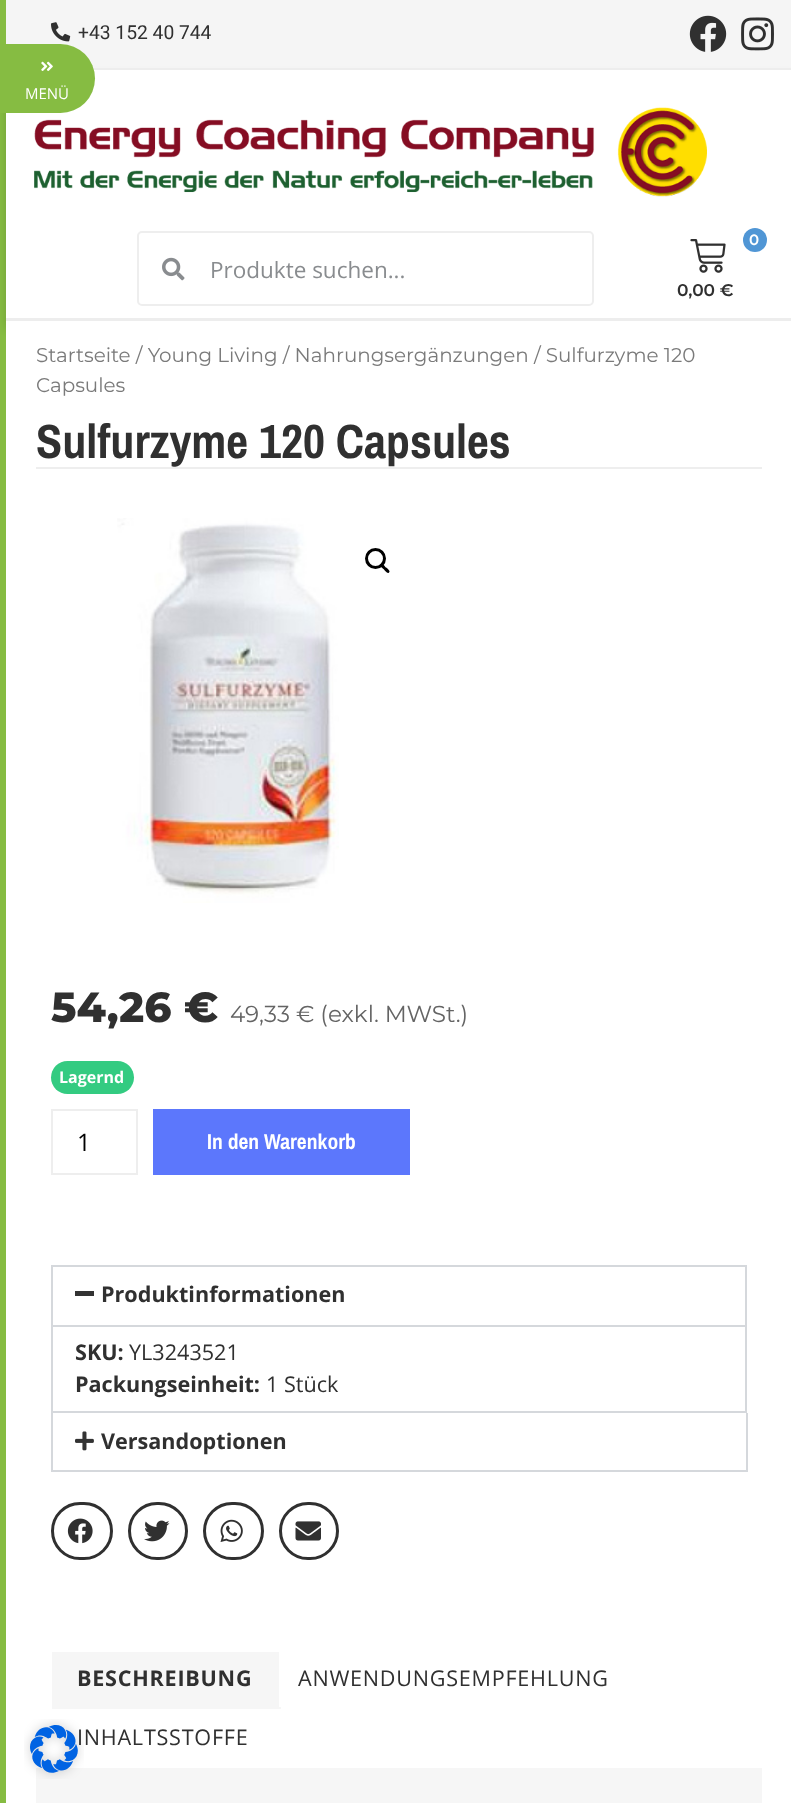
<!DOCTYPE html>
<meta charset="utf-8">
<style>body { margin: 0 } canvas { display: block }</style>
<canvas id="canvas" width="791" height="1803"></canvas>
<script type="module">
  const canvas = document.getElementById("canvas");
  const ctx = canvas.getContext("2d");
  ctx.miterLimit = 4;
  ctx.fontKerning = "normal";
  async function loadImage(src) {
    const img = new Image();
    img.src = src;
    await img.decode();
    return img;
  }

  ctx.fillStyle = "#86bc42";
  ctx.fillRect(0, 0, 791, 1803);
  ctx.fillStyle = "#f5f5f5";
  ctx.fillRect(6, 0, 785, 68);
  ctx.drawImage(await loadImage("img1.png"), 51, 22, 20, 20);
  ctx.font = "19.25px Roboto";
  ctx.fillStyle = "#303030";
  ctx.fillText("+43 152 40 744", 78, 39);
  ctx.drawImage(await loadImage("img2.png"), 689, 15, 38, 37);
  ctx.drawImage(await loadImage("img3.png"), 741, 17, 33, 34);
  ctx.fillStyle = "rgba(0, 0, 0, 0.15)";
  ctx.filter = "blur(4px)";
  ctx.beginPath();
  ctx.rect(6, 75, 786, 254);
  ctx.fill();
  ctx.filter = "none";
  ctx.fillStyle = "#ffffff";
  ctx.fillRect(6, 70, 785, 248);
  ctx.fillStyle = "#ededed";
  ctx.fillRect(93, 68, 698, 2);
  ctx.drawImage(await loadImage("img5.png"), 34, 107, 673, 90);
  ctx.fillStyle = "#86bc42";
  ctx.beginPath();
  ctx.roundRect(0, 44, 95, 69, [0, 34.5, 34.5, 0]);
  ctx.fill();
  ctx.drawImage(await loadImage("img4.png"), 41, 61, 12, 10);
  ctx.font = "15px Open Sans";
  ctx.fillStyle = "#ffffff";
  ctx.fillText("MENÜ", 25, 99);
  ctx.fillStyle = "#ededed";
  ctx.fillRect(6, 318, 785, 3);
  ctx.beginPath();
  ctx.roundRect(138, 232, 455, 73, 4);
  ctx.strokeStyle = "#eeeeee";
  ctx.lineWidth = 2;
  ctx.stroke();
  ctx.drawImage(await loadImage("img6.png"), 162, 257, 23, 24);
  ctx.font = "22.5px Open Sans";
  ctx.fillStyle = "#898c8f";
  ctx.fillText("Produkte suchen...", 210, 278);
  ctx.drawImage(await loadImage("img7.png"), 690, 239, 36, 34);
  ctx.fillStyle = "#5096d5";
  ctx.beginPath();
  ctx.arc(755, 240, 12, 0, Math.PI * 2);
  ctx.fill();
  ctx.font = "600 15px Montserrat";
  ctx.fillStyle = "#ffffff";
  ctx.fillText("0", 749, 245);
  ctx.font = "600 17px Montserrat";
  ctx.fillStyle = "#303030";
  ctx.fillText("0,00 €", 677, 296);
  ctx.fillStyle = "#ffffff";
  ctx.fillRect(6, 321, 785, 1482);
  ctx.font = "19.9px Montserrat";
  ctx.fillStyle = "#7a7a7a";
  ctx.fillText("Startseite / Young Living / Nahrungsergänzungen / Sulfurzyme 120", 36, 362);
  ctx.fillText("Capsules", 36, 392);
  ctx.fillStyle = "#eeeeee";
  ctx.fillRect(36, 467, 726, 2);
  ctx.font = "bold 48px Archivo Narrow";
  ctx.fillStyle = "#303030";
  ctx.fillText("Sulfurzyme 120 Capsules", 36, 458);
  ctx.drawImage(await loadImage("img8.png"), 117, 518, 222, 385);
  ctx.beginPath();
  ctx.arc(375.5, 558.5, 9, 0, Math.PI * 2);
  ctx.strokeStyle = "#000000";
  ctx.lineWidth = 3;
  ctx.stroke();
  ctx.fillStyle = "#000000";
  ctx.beginPath();
  ctx.moveTo(380.5, 564);
  ctx.bezierCurveTo(382.5, 562.5, 385, 566.5, 386, 567.5);
  ctx.bezierCurveTo(387, 568, 391, 571, 389, 572.5);
  ctx.bezierCurveTo(387.5, 574.5, 385, 570.5, 384, 569.5);
  ctx.bezierCurveTo(383, 568.5, 379, 566, 380.5, 564);
  ctx.closePath();
  ctx.fill();
  ctx.font = "800 42px Montserrat";
  ctx.fillStyle = "#303030";
  ctx.fillText("54,26 €", 51, 1022);
  ctx.font = "23.1px Montserrat";
  ctx.fillStyle = "#646464";
  ctx.fillText("49,33 € (exkl. MWSt.)", 230, 1022);
  ctx.fillStyle = "#33cb81";
  ctx.beginPath();
  ctx.roundRect(51, 1061, 83, 33, 16.5);
  ctx.fill();
  ctx.font = "bold 16px Open Sans";
  ctx.fillStyle = "#ffffff";
  ctx.fillText("Lagernd", 59, 1083);
  ctx.strokeStyle = "#eeeeee";
  ctx.lineWidth = 2;
  ctx.strokeRect(52, 1110, 85, 64);
  ctx.font = "24px Open Sans";
  ctx.fillStyle = "#000000";
  ctx.fillText("1", 77, 1151);
  ctx.fillStyle = "#5c77fc";
  ctx.fillRect(153, 1109, 257, 66);
  ctx.font = "bold 21.6px Archivo Narrow";
  ctx.fillStyle = "#ffffff";
  ctx.fillText("In den Warenkorb", 207, 1149);
  ctx.strokeStyle = "#d5d8dc";
  ctx.strokeRect(52, 1266, 694, 146);
  ctx.fillStyle = "#333333";
  ctx.fillRect(75, 1291, 19, 5);
  ctx.font = "bold 21.6px Open Sans";
  ctx.fillStyle = "#303030";
  ctx.fillText("Produktinformationen", 101, 1302);
  ctx.fillStyle = "#d5d8dc";
  ctx.fillRect(53, 1325, 693, 2);
  ctx.fillStyle = "#303030";
  ctx.fillText("SKU:", 75, 1360);
  ctx.font = "21.6px Open Sans";
  ctx.fillText("YL3243521", 129, 1360);
  ctx.font = "bold 21.6px Open Sans";
  ctx.fillText("Packungseinheit:", 75, 1392);
  ctx.font = "21.6px Open Sans";
  ctx.fillText("1 Stück", 266, 1392);
  ctx.fillStyle = "#d5d8dc";
  ctx.fillRect(746, 1413, 2, 59);
  ctx.fillRect(51, 1470, 696, 2);
  ctx.fillRect(51, 1413, 2, 59);
  ctx.drawImage(await loadImage("img9.png"), 75, 1431, 19, 20);
  ctx.font = "bold 21.6px Open Sans";
  ctx.fillStyle = "#303030";
  ctx.fillText("Versandoptionen", 101, 1449);
  ctx.beginPath();
  ctx.roundRect(52.5, 1503.5, 59, 55, 27.5);
  ctx.strokeStyle = "#303030";
  ctx.lineWidth = 3;
  ctx.stroke();
  ctx.drawImage(await loadImage("img10.png"), 67, 1518, 26, 26);
  ctx.beginPath();
  ctx.roundRect(129.5, 1503.5, 57, 55, 27.5);
  ctx.stroke();
  ctx.drawImage(await loadImage("img11.png"), 144, 1520, 26, 22);
  ctx.beginPath();
  ctx.roundRect(204.5, 1503.5, 58, 55, 27.5);
  ctx.stroke();
  ctx.drawImage(await loadImage("img12.png"), 220, 1519, 23, 23);
  ctx.beginPath();
  ctx.roundRect(280.5, 1503.5, 57, 55, 27.5);
  ctx.stroke();
  ctx.drawImage(await loadImage("img13.png"), 295, 1521, 26, 20);
  ctx.fillStyle = "#f6f6f6";
  ctx.fillRect(52, 1652, 227, 55);
  ctx.fillRect(50, 1707, 231, 2);
  ctx.fillStyle = "#ffffff";
  ctx.fillRect(50, 1707, 2, 2);
  ctx.letterSpacing = "0.75px";
  ctx.fillStyle = "#303030";
  ctx.fillText("BESCHREIBUNG", 77, 1686);
  ctx.font = "21.6px Open Sans";
  ctx.fillText("ANWENDUNGSEMPFEHLUNG", 298, 1686);
  ctx.fillText("INHALTSSTOFFE", 77, 1745);
  ctx.fillStyle = "#f6f6f6";
  ctx.fillRect(36, 1768, 726, 35);
  ctx.drawImage(await loadImage("img14.png"), 24, 1719, 60, 60);
</script>
